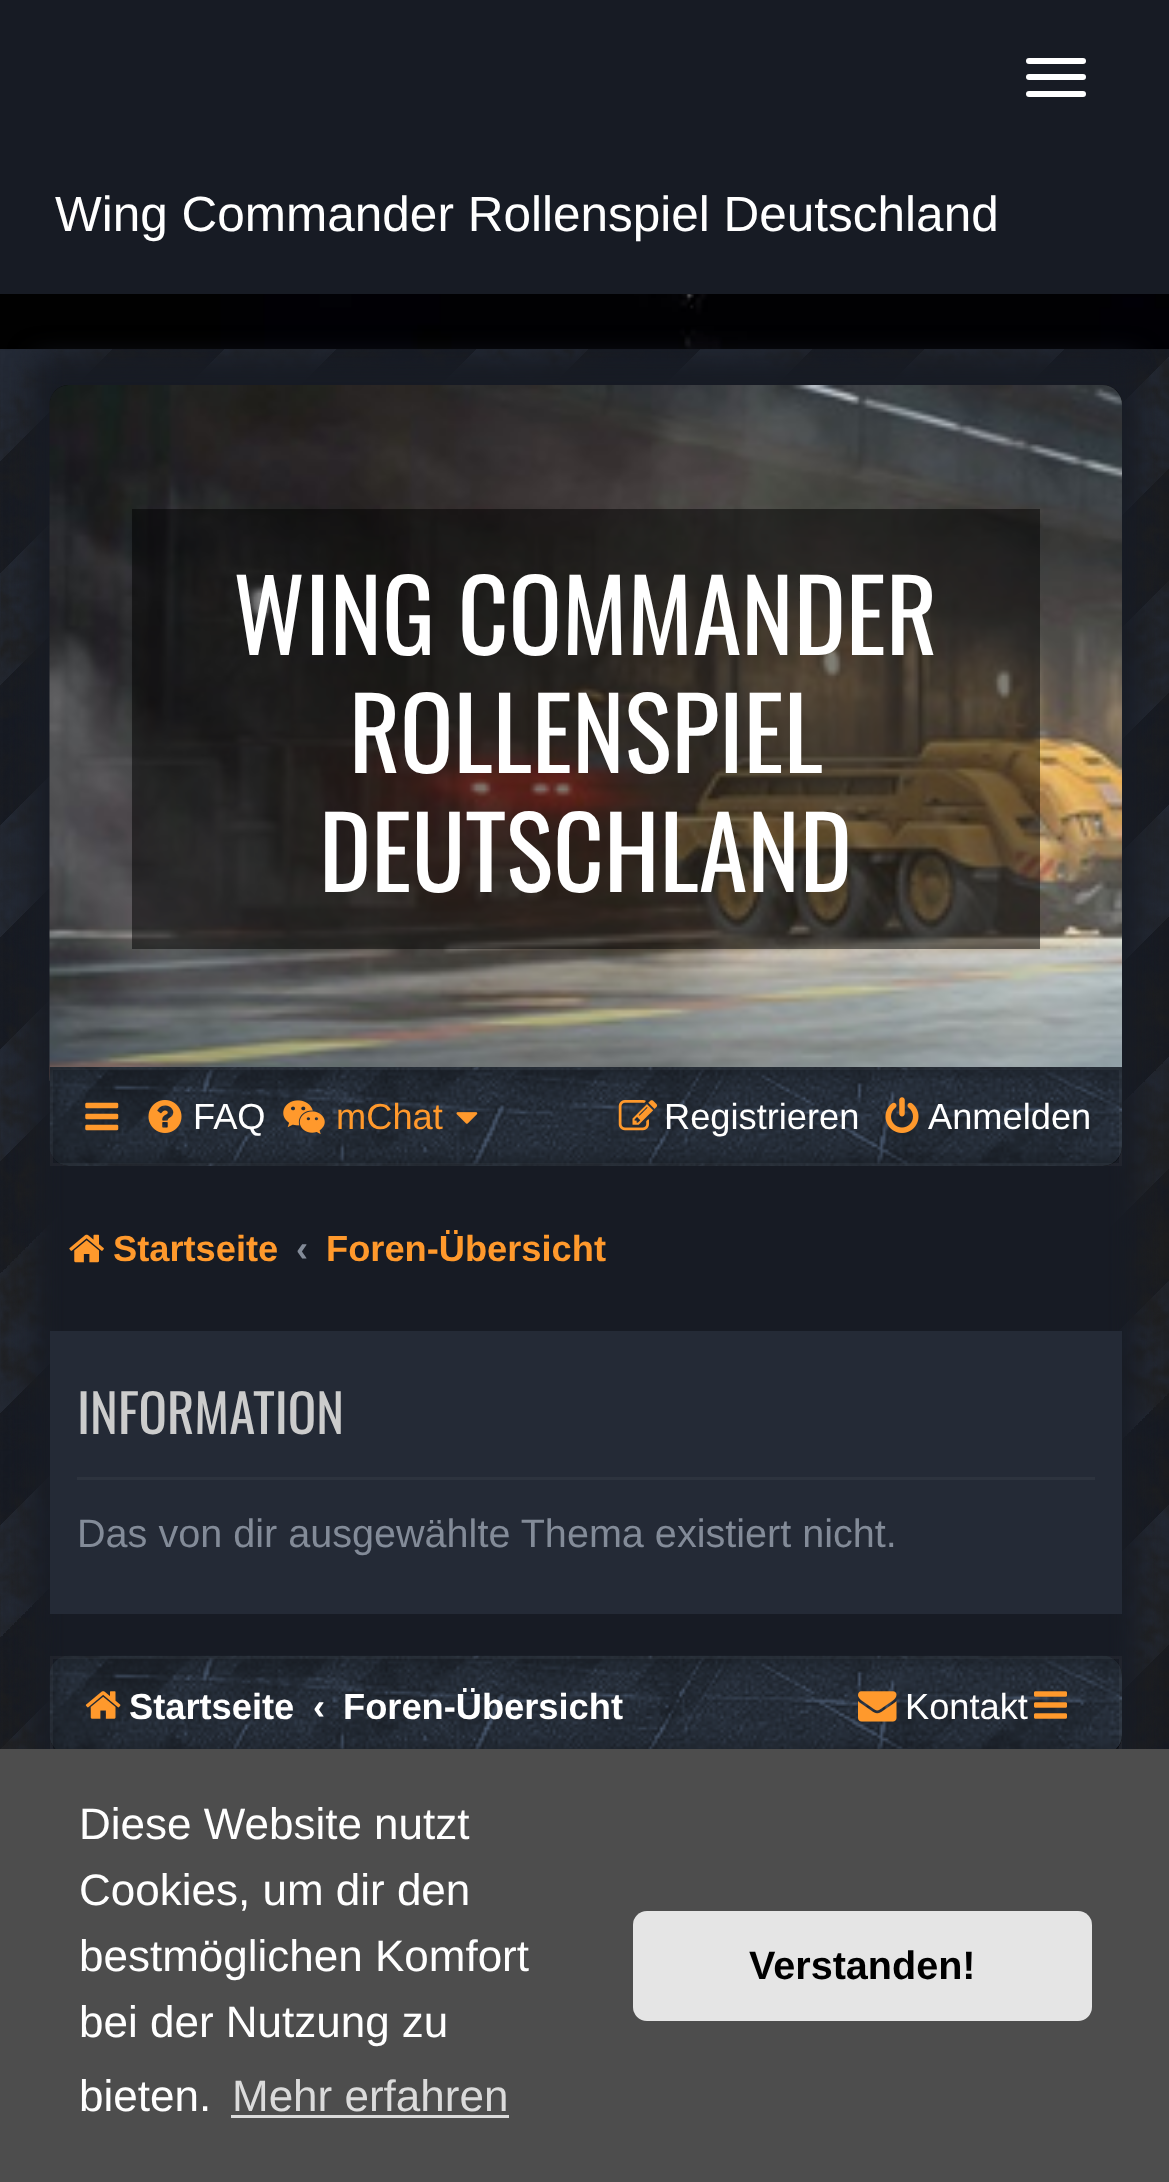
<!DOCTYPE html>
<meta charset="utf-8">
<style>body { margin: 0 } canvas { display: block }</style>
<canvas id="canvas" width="1169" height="2182"></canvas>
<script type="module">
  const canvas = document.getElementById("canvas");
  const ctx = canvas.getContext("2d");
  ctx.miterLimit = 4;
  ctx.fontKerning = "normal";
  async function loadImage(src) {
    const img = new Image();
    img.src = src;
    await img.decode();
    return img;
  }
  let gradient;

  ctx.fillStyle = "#ffffff";
  ctx.fillRect(0, 0, 1169, 2182);
  ctx.drawImage(await loadImage("img1.png"), 0, 294, 1169, 55);
  ctx.fillStyle = "#171b24";
  ctx.fillRect(0, 0, 1169, 294);
  ctx.fillStyle = "#ffffff";
  ctx.beginPath();
  ctx.roundRect(1026, 58, 60, 6, 3);
  ctx.fill();
  ctx.beginPath();
  ctx.roundRect(1026, 74, 60, 6, 3);
  ctx.fill();
  ctx.beginPath();
  ctx.roundRect(1026, 91, 60, 6, 3);
  ctx.fill();
  ctx.font = "49.5px Liberation Sans";
  ctx.fillText("Wing Commander Rollenspiel Deutschland", 55, 231);
  gradient = ctx.createLinearGradient(-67, 417, 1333, 1817);
  gradient.addColorStop(0, "#242a36");
  gradient.addColorStop(0.04, "#242a36");
  gradient.addColorStop(0.04, "#171b24");
  gradient.addColorStop(0.08, "#171b24");
  gradient.addColorStop(0.08, "#242a36");
  gradient.addColorStop(0.12, "#242a36");
  gradient.addColorStop(0.12, "#171b24");
  gradient.addColorStop(0.17, "#171b24");
  gradient.addColorStop(0.17, "#242a36");
  gradient.addColorStop(0.21, "#242a36");
  gradient.addColorStop(0.21, "#171b24");
  gradient.addColorStop(0.25, "#171b24");
  gradient.addColorStop(0.25, "#242a36");
  gradient.addColorStop(0.29, "#242a36");
  gradient.addColorStop(0.29, "#171b24");
  gradient.addColorStop(0.33, "#171b24");
  gradient.addColorStop(0.33, "#242a36");
  gradient.addColorStop(0.38, "#242a36");
  gradient.addColorStop(0.38, "#171b24");
  gradient.addColorStop(0.42, "#171b24");
  gradient.addColorStop(0.42, "#242a36");
  gradient.addColorStop(0.46, "#242a36");
  gradient.addColorStop(0.46, "#171b24");
  gradient.addColorStop(0.5, "#171b24");
  gradient.addColorStop(0.5, "#242a36");
  gradient.addColorStop(0.54, "#242a36");
  gradient.addColorStop(0.54, "#171b24");
  gradient.addColorStop(0.58, "#171b24");
  gradient.addColorStop(0.58, "#242a36");
  gradient.addColorStop(0.62, "#242a36");
  gradient.addColorStop(0.62, "#171b24");
  gradient.addColorStop(0.67, "#171b24");
  gradient.addColorStop(0.67, "#242a36");
  gradient.addColorStop(0.71, "#242a36");
  gradient.addColorStop(0.71, "#171b24");
  gradient.addColorStop(0.75, "#171b24");
  gradient.addColorStop(0.75, "#242a36");
  gradient.addColorStop(0.79, "#242a36");
  gradient.addColorStop(0.79, "#171b24");
  gradient.addColorStop(0.83, "#171b24");
  gradient.addColorStop(0.83, "#242a36");
  gradient.addColorStop(0.88, "#242a36");
  gradient.addColorStop(0.88, "#171b24");
  gradient.addColorStop(0.92, "#171b24");
  gradient.addColorStop(0.92, "#242a36");
  gradient.addColorStop(0.96, "#242a36");
  gradient.addColorStop(0.96, "#171b24");
  gradient.addColorStop(1, "#171b24");
  ctx.fillStyle = gradient;
  ctx.fillRect(0, 349, 1169, 1400);
  ctx.drawImage(await loadImage("img2.png"), 0, 349, 1169, 1400);
  ctx.fillStyle = "#171b24";
  ctx.filter = "blur(14px)";
  ctx.beginPath();
  ctx.rect(36, 358, 1100, 1424);
  ctx.fill();
  ctx.filter = "none";
  ctx.fillStyle = "#000000";
  ctx.beginPath();
  ctx.roundRect(50, 385, 1072, 696, [19, 19, 0, 0]);
  ctx.fill();
  ctx.drawImage(await loadImage("img3.png"), 49, 385, 1073, 696);
  ctx.fillStyle = "rgba(0, 0, 0, 0.5)";
  ctx.fillRect(132, 509, 908, 440);
  ctx.font = "99px Oswald";
  ctx.fillStyle = "#ffffff";
  ctx.fillText("WING COMMANDER", 233, 655);
  ctx.fillText("ROLLENSPIEL", 349, 773);
  ctx.fillText("DEUTSCHLAND", 319, 892);
  ctx.fillStyle = "#000000";
  ctx.beginPath();
  ctx.roundRect(50, 1067, 1072, 99, [0, 0, 19, 19]);
  ctx.fill();
  ctx.drawImage(await loadImage("img4.png"), 49, 1067, 1073, 99);
  ctx.strokeStyle = "rgba(255, 255, 255, 0.04)";
  ctx.lineWidth = 3;
  ctx.strokeRect(51.5, 1068.5, 1069, 96);
  ctx.drawImage(await loadImage("img5.png"), 85, 1102, 34, 29);
  ctx.drawImage(await loadImage("img6.png"), 148, 1100, 34, 33);
  ctx.font = "36.25px Liberation Sans";
  ctx.fillStyle = "#ffffff";
  ctx.fillText("FAQ", 193, 1129);
  ctx.drawImage(await loadImage("img7.png"), 283, 1100, 42, 35);
  ctx.fillStyle = "#ff992c";
  ctx.fillText("mChat", 336, 1129);
  ctx.drawImage(await loadImage("img8.png"), 456, 1112, 22, 12);
  ctx.drawImage(await loadImage("img9.png"), 618, 1100, 40, 31);
  ctx.fillStyle = "#ffffff";
  ctx.fillText("Registrieren", 664, 1129);
  ctx.drawImage(await loadImage("img10.png"), 885, 1097, 34, 36);
  ctx.fillText("Anmelden", 928, 1129);
  ctx.drawImage(await loadImage("img11.png"), 69, 1234, 35, 29);
  ctx.font = "bold 36.25px Liberation Sans";
  ctx.fillStyle = "#ff992c";
  ctx.fillText("Startseite", 113, 1261);
  ctx.fillStyle = "#838b98";
  ctx.fillText("‹", 296, 1261);
  ctx.fillStyle = "#ff992c";
  ctx.fillText("Foren-Übersicht", 326, 1261);
  ctx.fillStyle = "#242a36";
  ctx.fillRect(50, 1331, 1072, 283);
  ctx.fillStyle = "#2d333e";
  ctx.fillRect(77, 1477, 1018, 3);
  ctx.font = "52.75px Oswald";
  ctx.fillStyle = "#cccccc";
  ctx.fillText("INFORMATION", 77, 1434);
  ctx.font = "39.6px Liberation Sans";
  ctx.fillStyle = "#838b98";
  ctx.fillText("Das von dir ausgewählte Thema existiert nicht.", 77, 1547);
  ctx.fillStyle = "#000000";
  ctx.beginPath();
  ctx.roundRect(50, 1656, 1072, 99, 19);
  ctx.fill();
  ctx.drawImage(await loadImage("img12.png"), 49, 1655, 1073, 94);
  ctx.strokeRect(51.5, 1657.5, 1069, 96);
  ctx.drawImage(await loadImage("img13.png"), 85, 1691, 36, 28);
  ctx.font = "bold 36.25px Liberation Sans";
  ctx.fillStyle = "#ffffff";
  ctx.fillText("Startseite", 129, 1719);
  ctx.fillText("‹", 313, 1719);
  ctx.fillText("Foren-Übersicht", 343, 1719);
  ctx.drawImage(await loadImage("img14.png"), 858, 1691, 39, 31);
  ctx.font = "36.25px Liberation Sans";
  ctx.fillText("Kontakt", 905, 1719);
  ctx.drawImage(await loadImage("img15.png"), 1034, 1691, 33, 28);
  ctx.fillStyle = "#4d4d4d";
  ctx.fillRect(0, 1749, 1169, 433);
  ctx.font = "44px Liberation Sans";
  ctx.fillStyle = "#ffffff";
  ctx.fillText("Diese Website nutzt", 79, 1839);
  ctx.fillText("Cookies, um dir den", 79, 1905);
  ctx.fillText("bestmöglichen Komfort", 79, 1971);
  ctx.fillText("bei der Nutzung zu", 79, 2037);
  ctx.fillText("bieten.", 79, 2111);
  ctx.fillStyle = "#dbdbdb";
  ctx.fillText("Mehr erfahren", 232, 2111);
  ctx.fillRect(231, 2115, 278, 3);
  ctx.fillStyle = "#e5e5e5";
  ctx.beginPath();
  ctx.roundRect(633, 1911, 459, 110, 14);
  ctx.fill();
  ctx.font = "bold 39.6px Liberation Sans";
  ctx.fillStyle = "#000000";
  ctx.fillText("Verstanden!", 749, 1979);
</script>
